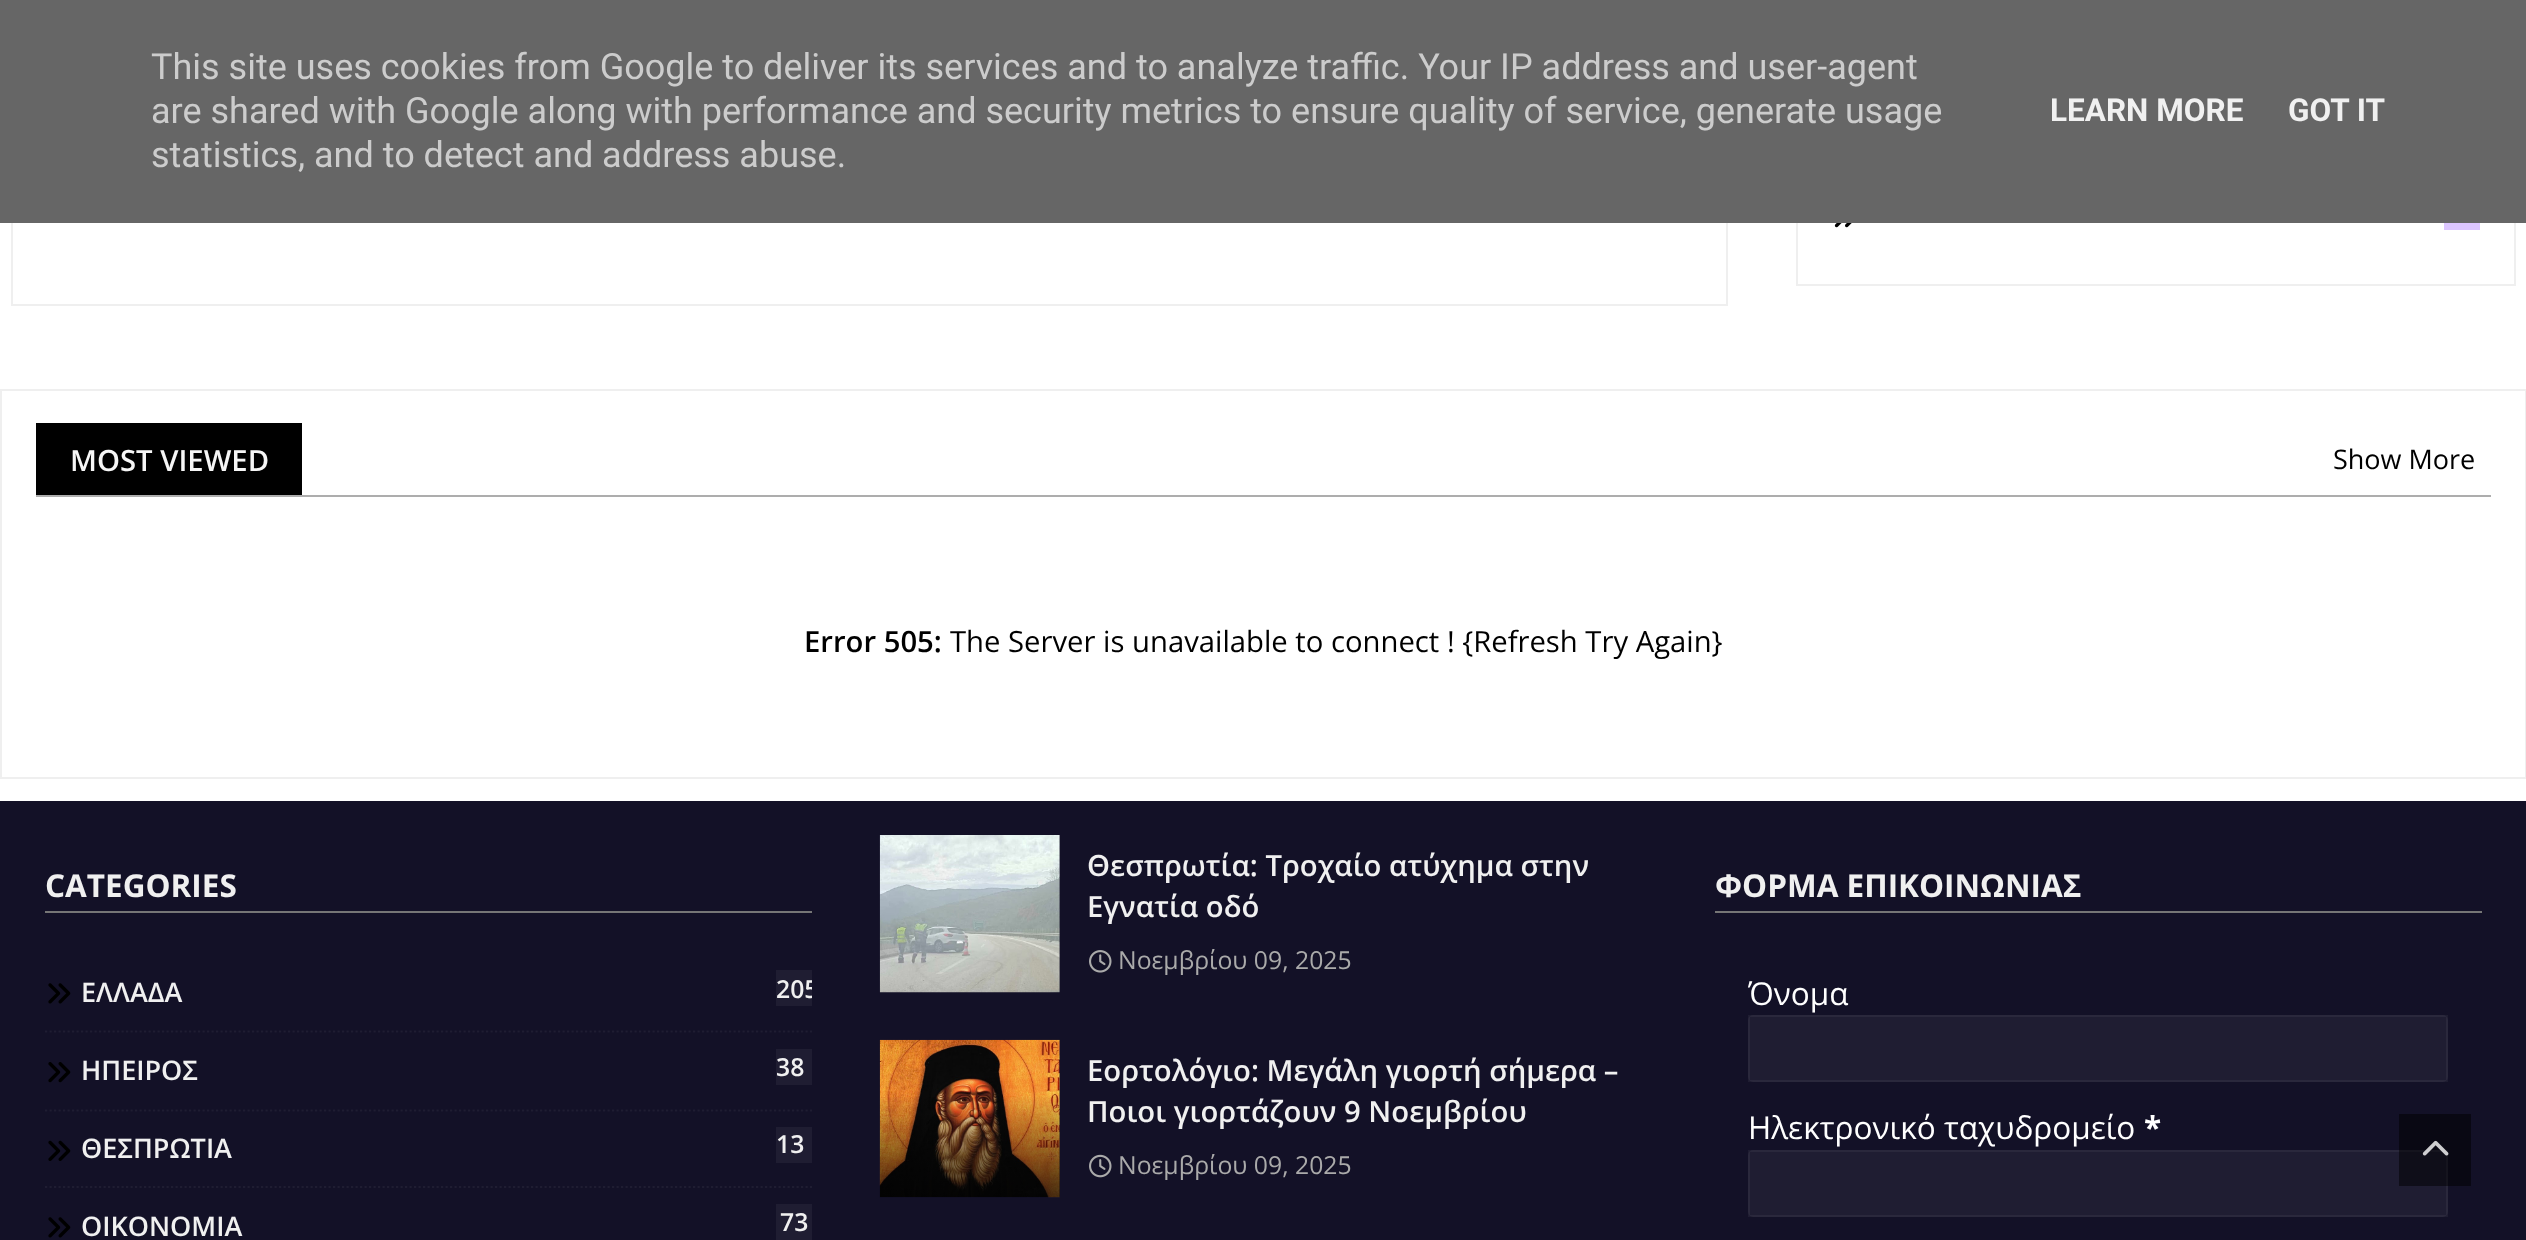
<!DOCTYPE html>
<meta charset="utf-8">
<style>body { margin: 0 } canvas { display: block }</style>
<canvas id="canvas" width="2526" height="1240"></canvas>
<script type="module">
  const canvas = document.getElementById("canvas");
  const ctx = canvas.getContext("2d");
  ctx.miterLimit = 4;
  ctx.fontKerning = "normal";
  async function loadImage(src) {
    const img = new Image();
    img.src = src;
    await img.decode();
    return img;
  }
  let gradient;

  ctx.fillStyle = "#ffffff";
  ctx.fillRect(0, 0, 2526, 1240);
  ctx.strokeStyle = "#efefef";
  ctx.lineWidth = 2;
  ctx.strokeRect(12, -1, 1715, 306);
  ctx.strokeRect(1797, -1, 718, 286);
  ctx.fillStyle = "#666666";
  ctx.fillRect(0, 0, 2526, 223);
  ctx.font = "36px Roboto";
  ctx.fillStyle = "#cccccc";
  ctx.fillText("This site uses cookies from Google to deliver its services and to analyze traffic. Your IP address and user-agent", 151, 79);
  ctx.fillText("are shared with Google along with performance and security metrics to ensure quality of service, generate usage", 151, 123);
  ctx.fillText("statistics, and to detect and address abuse.", 151, 167);
  ctx.font = "bold 31.5px Roboto";
  ctx.fillStyle = "#f0f0f0";
  ctx.fillText("LEARN MORE", 2050, 121);
  ctx.fillText("GOT IT", 2288, 121);
  ctx.drawImage(await loadImage("img1.png"), 1834, 223, 18, 5);
  ctx.fillStyle = "#dcc6ff";
  ctx.fillRect(2444, 223, 36, 7);
  ctx.strokeRect(1, 390, 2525, 388);
  ctx.fillStyle = "#adadad";
  ctx.fillRect(36, 495, 2455, 2);
  ctx.fillStyle = "#000000";
  ctx.fillRect(36, 423, 266, 72);
  ctx.font = "600 29.25px Open Sans";
  ctx.fillStyle = "#f6f6f6";
  ctx.fillText("MOST VIEWED", 70, 471);
  ctx.font = "27px Open Sans";
  ctx.fillStyle = "#000000";
  ctx.fillText("Show More", 2333, 469);
  ctx.font = "600 29.25px Open Sans";
  ctx.fillText("Error 505:", 804, 652);
  ctx.font = "29.25px Open Sans";
  ctx.fillText("The Server is unavailable to connect ! {Refresh Try Again}", 950, 652);
  ctx.fillStyle = "#131127";
  ctx.fillRect(0, 801, 2526, 439);
  ctx.fillStyle = "#767676";
  ctx.fillRect(45, 911, 767, 2);
  ctx.font = "bold 31.5px Open Sans";
  ctx.fillStyle = "#f0f0f0";
  ctx.fillText("CATEGORIES", 45, 897);
  ctx.drawImage(await loadImage("img2.png"), 48, 983, 23, 21);
  ctx.font = "600 27px Open Sans";
  ctx.fillText("ΕΛΛΑΔΑ", 81, 1002);
  ctx.fillStyle = "#1f1d32";
  ctx.fillRect(776, 970, 36, 36);
  ctx.save();
  ctx.beginPath();
  ctx.rect(45, 970, 767, 45);
  ctx.clip();
  ctx.font = "600 24.75px Open Sans";
  ctx.fillStyle = "#f0f0f0";
  ctx.fillText("205", 776, 998);
  ctx.restore();
  ctx.beginPath();
  ctx.moveTo(45, 1031.5);
  ctx.lineTo(812, 1031.5);
  ctx.strokeStyle = "#1f1d32";
  ctx.lineWidth = 2.2;
  ctx.setLineDash([2.25, 2.25]);
  ctx.stroke();
  ctx.drawImage(await loadImage("img3.png"), 48, 1062, 23, 21);
  ctx.fillStyle = "#f0f0f0";
  ctx.fillText("ΗΠΕΙΡΟΣ", 81, 1080);
  ctx.fillStyle = "#1f1d32";
  ctx.fillRect(776, 1049, 36, 36);
  ctx.font = "600 24.75px Open Sans";
  ctx.fillStyle = "#f0f0f0";
  ctx.fillText("38", 776, 1076);
  ctx.beginPath();
  ctx.moveTo(45, 1110.5);
  ctx.lineTo(812, 1110.5);
  ctx.stroke();
  ctx.drawImage(await loadImage("img4.png"), 48, 1140, 23, 21);
  ctx.font = "600 27px Open Sans";
  ctx.fillText("ΘΕΣΠΡΩΤΙΑ", 81, 1158);
  ctx.fillStyle = "#1f1d32";
  ctx.fillRect(776, 1127, 36, 36);
  ctx.font = "600 24.75px Open Sans";
  ctx.fillStyle = "#f0f0f0";
  ctx.fillText("13", 776, 1153);
  ctx.beginPath();
  ctx.moveTo(45, 1187);
  ctx.lineTo(812, 1187);
  ctx.stroke();
  ctx.drawImage(await loadImage("img2.png"), 48, 1217, 23, 21);
  ctx.font = "600 27px Open Sans";
  ctx.fillText("ΟΙΚΟΝΟΜΙΑ", 81, 1236);
  ctx.fillStyle = "#1f1d32";
  ctx.fillRect(776, 1204, 36, 36);
  ctx.font = "600 24.75px Open Sans";
  ctx.fillStyle = "#f0f0f0";
  ctx.fillText("73", 780, 1231);
  ctx.fillStyle = "#1d1b2f";
  ctx.fillRect(1059, 835, 1, 157);
  ctx.drawImage(await loadImage("img5.png"), 879, 835, 181, 158);
  ctx.font = "600 29.25px Open Sans";
  ctx.fillStyle = "#f0f0f0";
  ctx.fillText("Θεσπρωτία: Τροχαίο ατύχημα στην", 1087, 876);
  ctx.fillText("Εγνατία οδό", 1087, 917);
  ctx.drawImage(await loadImage("img6.png"), 1089, 950, 23, 23);
  ctx.font = "24.75px Open Sans";
  ctx.fillStyle = "#aaaaaa";
  ctx.fillText("Νοεμβρίου 09, 2025", 1118, 969);
  ctx.fillStyle = "#1d1b2f";
  ctx.fillRect(1059, 1040, 1, 157);
  ctx.drawImage(await loadImage("img7.png"), 879, 1039, 181, 159);
  gradient = ctx.createLinearGradient(970, 1094, 970, 1197);
  gradient.addColorStop(0, "rgba(0, 0, 0, 0)");
  gradient.addColorStop(1, "rgba(0, 0, 0, 0.7)");
  ctx.fillStyle = gradient;
  ctx.fillRect(880, 1097, 180, 100);
  ctx.font = "600 29.25px Open Sans";
  ctx.fillStyle = "#f0f0f0";
  ctx.fillText("Εορτολόγιο: Μεγάλη γιορτή σήμερα –", 1087, 1081);
  ctx.fillText("Ποιοι γιορτάζουν 9 Νοεμβρίου", 1087, 1122);
  ctx.drawImage(await loadImage("img8.png"), 1089, 1154, 23, 24);
  ctx.font = "24.75px Open Sans";
  ctx.fillStyle = "#aaaaaa";
  ctx.fillText("Νοεμβρίου 09, 2025", 1118, 1174);
  ctx.fillStyle = "#767676";
  ctx.fillRect(1715, 911, 767, 2);
  ctx.font = "bold 31.5px Open Sans";
  ctx.fillStyle = "#f0f0f0";
  ctx.fillText("ΦΟΡΜΑ ΕΠΙΚΟΙΝΩΝΙΑΣ", 1715, 897);
  ctx.font = "31.5px Open Sans";
  ctx.fillStyle = "#ffffff";
  ctx.fillText("Όνομα", 1748, 1005);
  ctx.fillStyle = "#1f1d32";
  ctx.beginPath();
  ctx.roundRect(1748, 1015, 700, 67, 5);
  ctx.fill();
  ctx.strokeStyle = "rgba(255, 255, 255, 0.05)";
  ctx.lineWidth = 2;
  ctx.setLineDash([]);
  ctx.strokeRect(1749, 1016, 698, 65);
  ctx.fillStyle = "#ffffff";
  ctx.fillText("Ηλεκτρονικό ταχυδρομείο", 1748, 1139);
  ctx.font = "bold 31.5px Open Sans";
  ctx.fillText("*", 2144, 1139);
  ctx.fillStyle = "#1f1d32";
  ctx.beginPath();
  ctx.roundRect(1748, 1150, 700, 67, 5);
  ctx.fill();
  ctx.strokeRect(1749, 1151, 698, 65);
  ctx.fillStyle = "rgba(0, 0, 0, 0.5)";
  ctx.fillRect(2399, 1114, 72, 72);
  ctx.drawImage(await loadImage("img9.png"), 2422, 1140, 27, 16);
</script>
